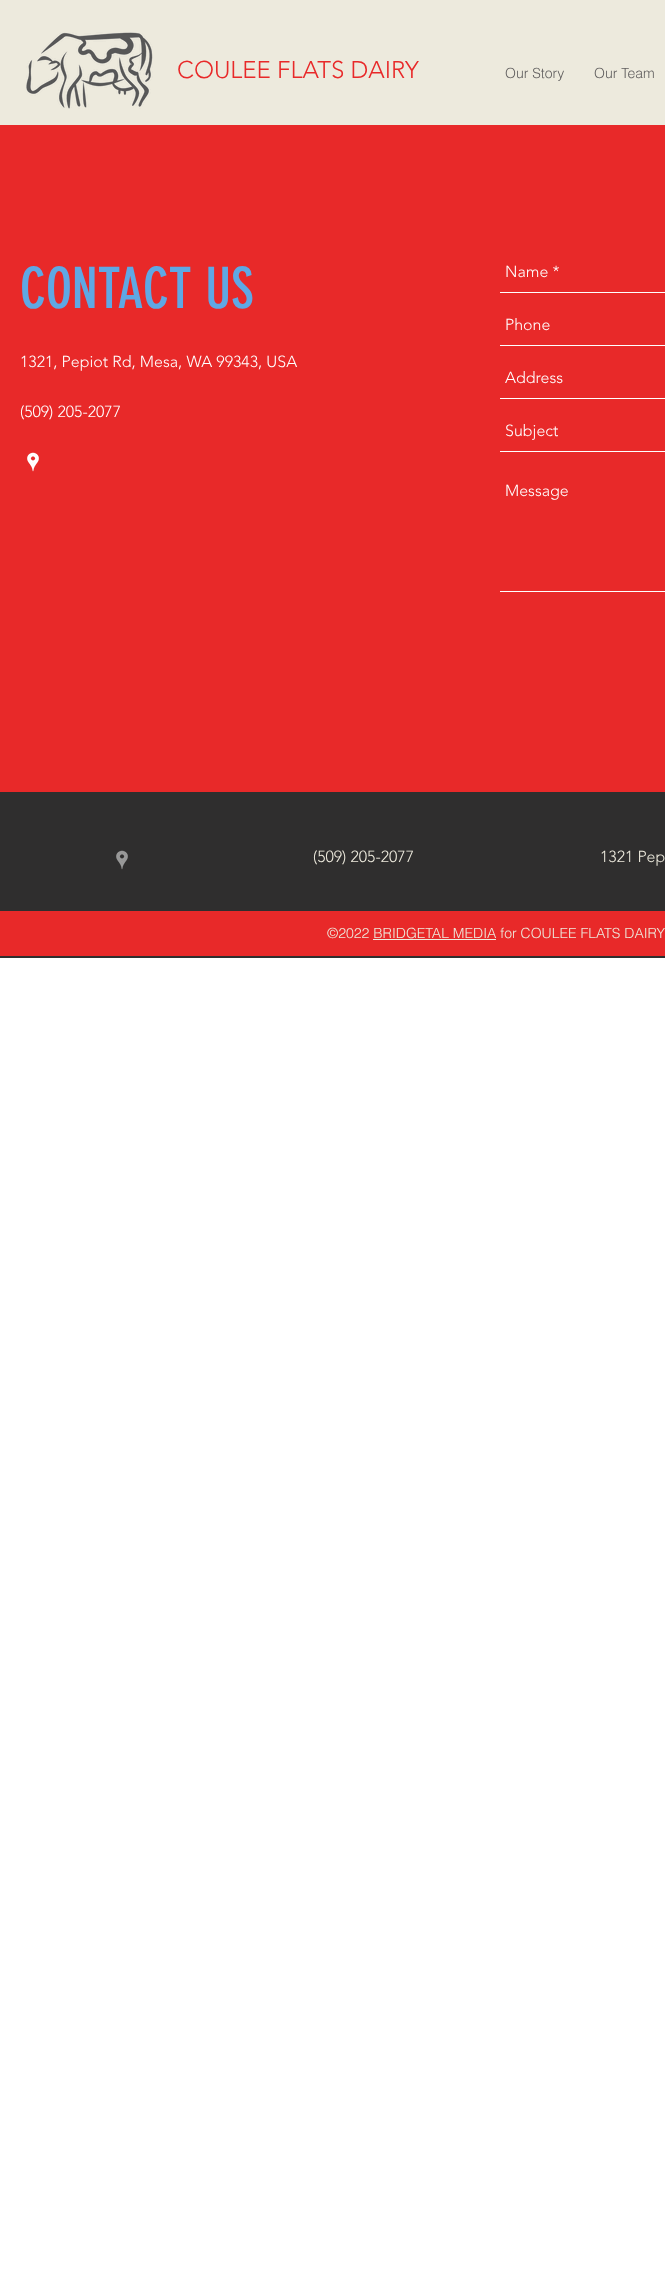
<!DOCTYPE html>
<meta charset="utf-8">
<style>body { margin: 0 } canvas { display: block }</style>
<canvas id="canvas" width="665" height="2271"></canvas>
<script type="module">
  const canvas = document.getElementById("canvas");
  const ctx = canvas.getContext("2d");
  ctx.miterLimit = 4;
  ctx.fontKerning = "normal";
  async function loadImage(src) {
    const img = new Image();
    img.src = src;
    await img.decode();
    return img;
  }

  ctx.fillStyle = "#ffffff";
  ctx.fillRect(0, 0, 665, 2271);
  ctx.fillStyle = "#edeadd";
  ctx.fillRect(0, 0, 665, 125);
  ctx.drawImage(await loadImage("img1.png"), 26, 32, 127, 77);
  ctx.font = "300 24px 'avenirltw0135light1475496'";
  ctx.fillStyle = "#e82929";
  ctx.fillText("COULEE FLATS DAIRY", 177, 78);
  ctx.font = "300 14px helvetica";
  ctx.fillStyle = "#605e5e";
  ctx.fillText("Our Story", 505, 78);
  ctx.fillText("Our Team", 594, 78);
  ctx.fillStyle = "#e82929";
  ctx.fillRect(0, 125, 665, 667);
  ctx.font = "56px 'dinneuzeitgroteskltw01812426'";
  ctx.fillStyle = "#5fa8e4";
  ctx.fillText("CONTACT US", 20, 308);
  ctx.fillStyle = "#ffffff";
  ctx.fillRect(500, 292, 165, 1);
  ctx.font = "300 16px 'avenirltw0135light1475496'";
  ctx.fillText("Name *", 505, 277);
  ctx.fillRect(500, 345, 165, 1);
  ctx.fillText("Phone", 505, 330);
  ctx.fillRect(500, 398, 165, 1);
  ctx.fillText("Address", 505, 383);
  ctx.fillRect(500, 451, 165, 1);
  ctx.fillText("Subject", 505, 436);
  ctx.fillRect(500, 591, 165, 1);
  ctx.fillText("Message", 505, 496);
  ctx.fillText("1321, Pepiot Rd, Mesa, WA 99343, USA", 20, 367);
  ctx.fillText("(509) 205-2077", 20, 417);
  ctx.drawImage(await loadImage("img2.png"), 27, 452, 12, 20);
  ctx.fillStyle = "#2f2e2e";
  ctx.fillRect(0, 792, 665, 166);
  ctx.drawImage(await loadImage("img3.png"), 116, 850, 12, 20);
  ctx.fillStyle = "#edeadd";
  ctx.fillText("(509) 205-2077", 313, 862);
  ctx.fillText("1321 Pep", 600, 862);
  ctx.fillStyle = "#e82929";
  ctx.fillRect(0, 911, 665, 45);
  ctx.font = "300 14px helvetica";
  ctx.fillStyle = "#edeadd";
  ctx.fillText("©2022 BRIDGETAL MEDIA for COULEE FLATS DAIRY", 327, 938);
  ctx.fillRect(373, 939, 123, 1);
</script>
